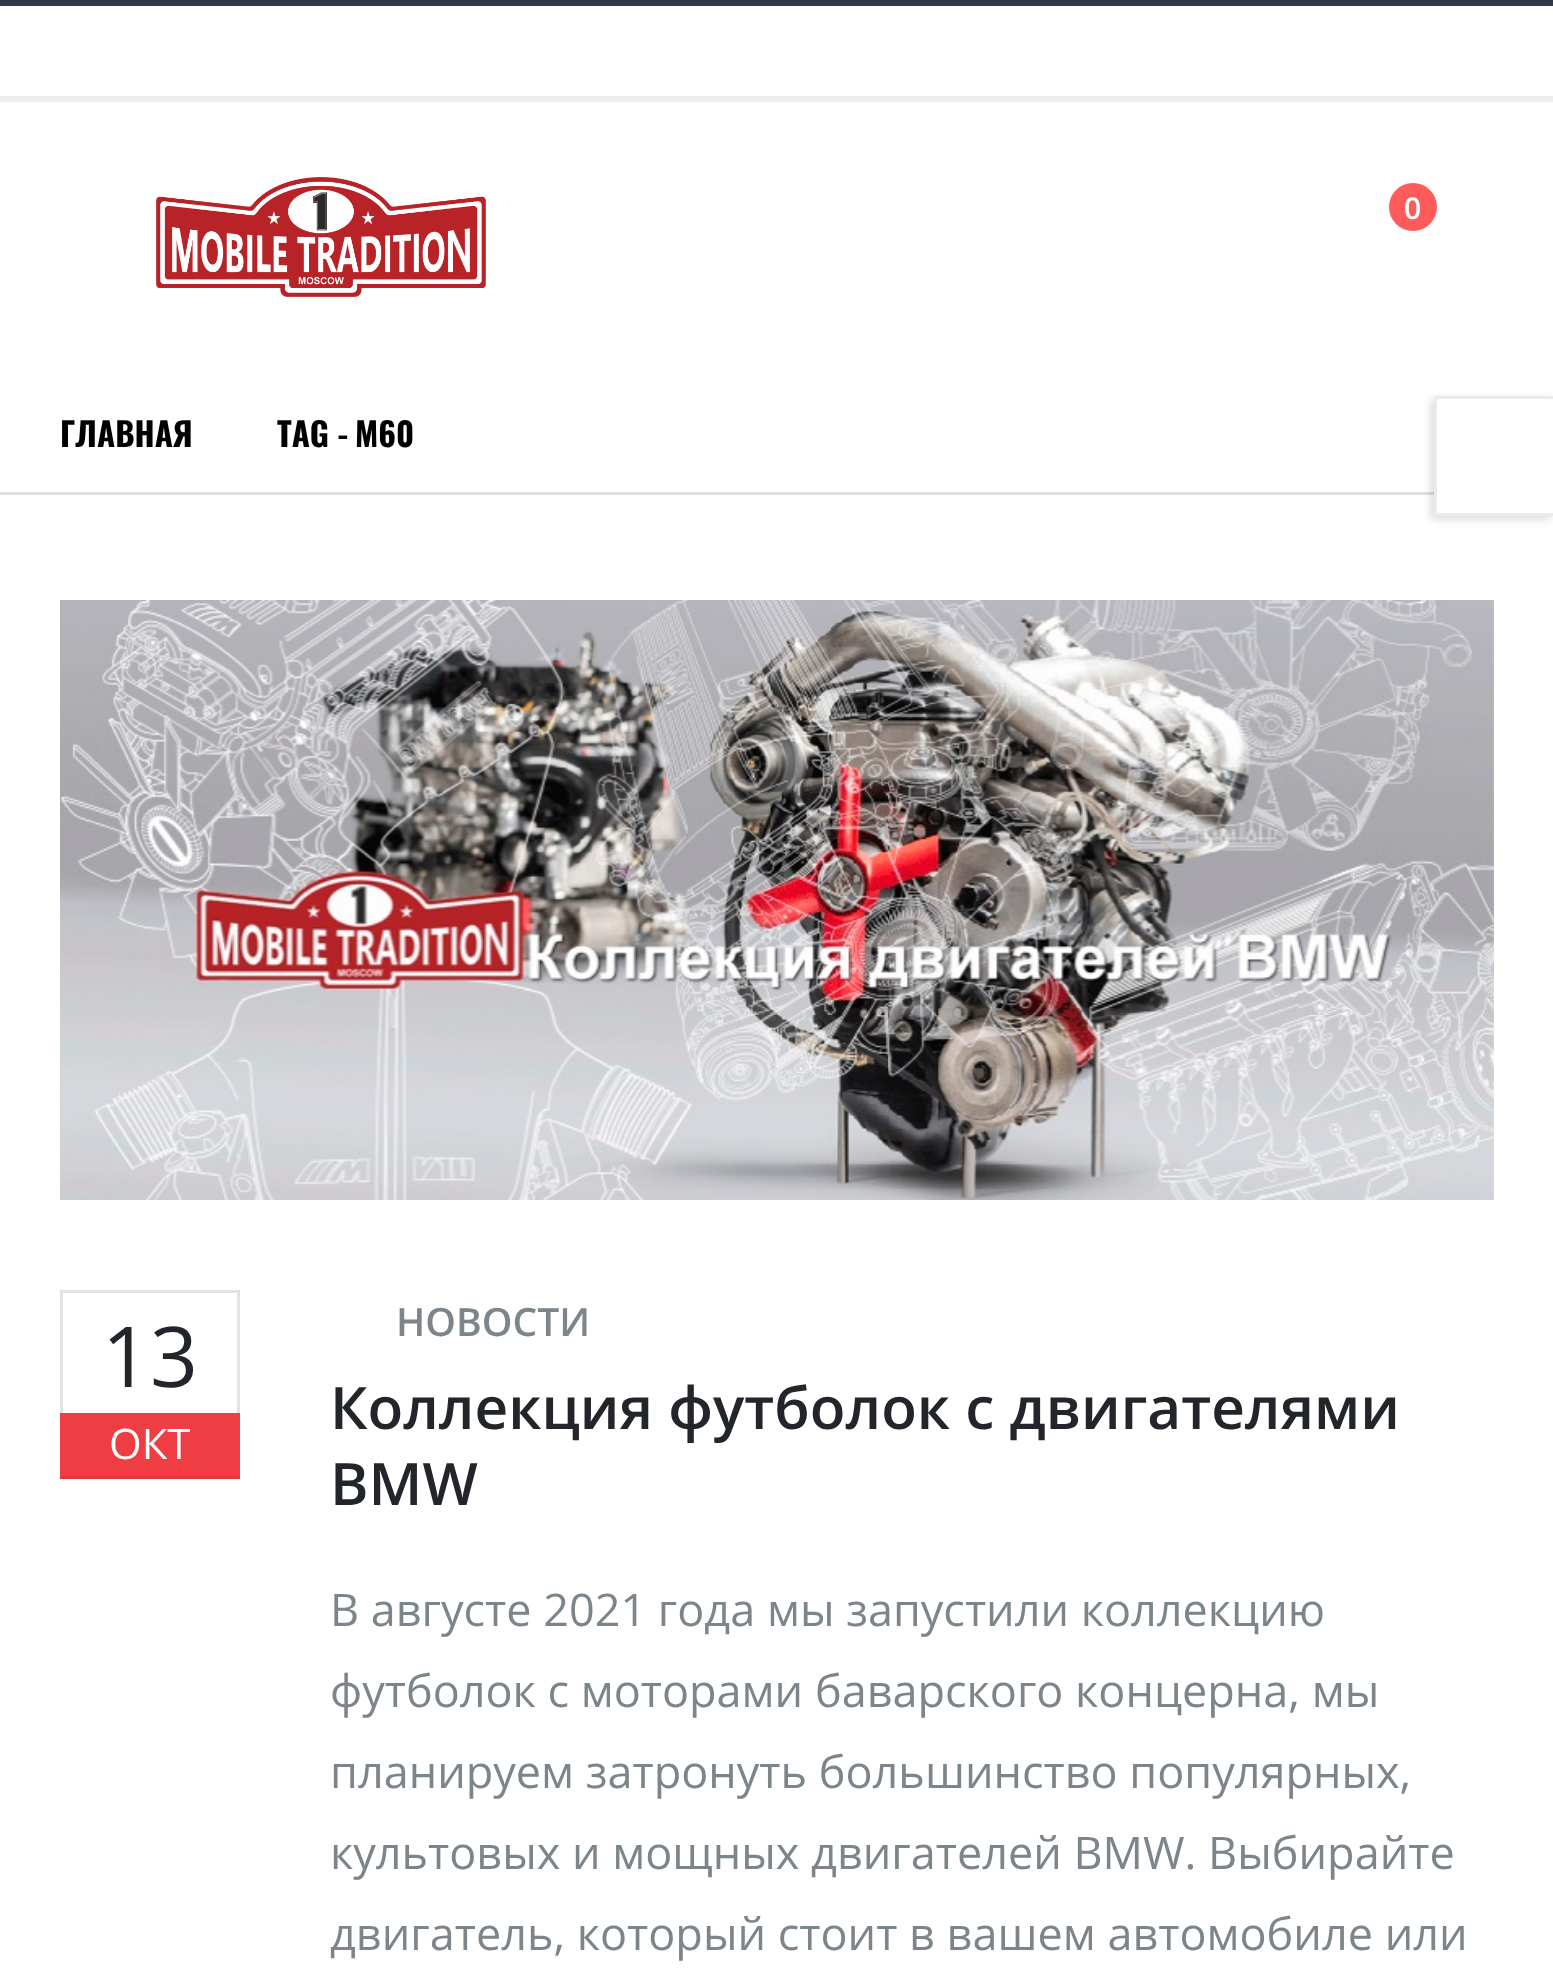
<!DOCTYPE html>
<meta charset="utf-8">
<style>body { margin: 0 } canvas { display: block }</style>
<canvas id="canvas" width="1553" height="1972"></canvas>
<script type="module">
  const canvas = document.getElementById("canvas");
  const ctx = canvas.getContext("2d");
  ctx.miterLimit = 4;
  ctx.fontKerning = "normal";
  async function loadImage(src) {
    const img = new Image();
    img.src = src;
    await img.decode();
    return img;
  }

  ctx.fillStyle = "#ffffff";
  ctx.fillRect(0, 0, 1553, 1972);
  ctx.fillStyle = "#2f3946";
  ctx.fillRect(0, 0, 1553, 6);
  ctx.fillStyle = "#eeeeee";
  ctx.fillRect(0, 96, 1553, 6);
  ctx.drawImage(await loadImage("img1.png"), 156, 177, 330, 120);
  ctx.fillStyle = "#ff5b5b";
  ctx.beginPath();
  ctx.arc(1413, 207, 24, 0, Math.PI * 2);
  ctx.fill();
  ctx.font = "600 30px Open Sans";
  ctx.fillStyle = "#ffffff";
  ctx.fillText("0", 1404, 219);
  ctx.fillStyle = "#dfdfdf";
  ctx.fillRect(0, 492, 1434, 3);
  ctx.font = "bold 33px Oswald";
  ctx.fillStyle = "#000000";
  ctx.fillText("ГЛАВНАЯ", 60, 447);
  ctx.fillText("TAG -", 277, 447);
  ctx.fillText("M60", 355, 447);
  ctx.fillStyle = "rgba(0, 0, 0, 0.15)";
  ctx.filter = "blur(4.5px)";
  ctx.beginPath();
  ctx.rect(1431, 399, 120, 120);
  ctx.fill();
  ctx.filter = "none";
  ctx.fillStyle = "#ffffff";
  ctx.fillRect(1434, 396, 119, 120);
  ctx.fillStyle = "#ebebeb";
  ctx.beginPath();
  ctx.moveTo(1434, 396);
  ctx.lineTo(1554, 396);
  ctx.lineTo(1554, 399);
  ctx.lineTo(1437, 399);
  ctx.closePath();
  ctx.fill();
  ctx.beginPath();
  ctx.moveTo(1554, 516);
  ctx.lineTo(1434, 516);
  ctx.lineTo(1437, 513);
  ctx.lineTo(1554, 513);
  ctx.closePath();
  ctx.fill();
  ctx.fillStyle = "rgba(0, 0, 0, 0.08)";
  ctx.beginPath();
  ctx.moveTo(1434, 516);
  ctx.lineTo(1434, 396);
  ctx.lineTo(1437, 399);
  ctx.lineTo(1437, 513);
  ctx.closePath();
  ctx.fill();
  ctx.drawImage(await loadImage("img2.png"), 60, 600, 1434, 600);
  ctx.font = "600 39px Open Sans";
  ctx.fillStyle = "#7b858a";
  ctx.fillText("НОВОСТИ", 396, 1336);
  ctx.fillStyle = "#e3e3e3";
  ctx.fillRect(60, 1290, 180, 3);
  ctx.fillRect(237, 1290, 3, 123);
  ctx.fillRect(60, 1290, 3, 123);
  ctx.font = "84px Open Sans";
  ctx.fillStyle = "#222529";
  ctx.fillText("13", 102, 1387);
  ctx.fillStyle = "#ee3d43";
  ctx.fillRect(60, 1413, 180, 63);
  ctx.fillStyle = "#dd393e";
  ctx.fillRect(60, 1476, 180, 3);
  ctx.font = "42px Open Sans";
  ctx.fillStyle = "#ffffff";
  ctx.fillText("ОКТ", 109, 1459);
  ctx.font = "600 58.5px Open Sans";
  ctx.fillStyle = "#222529";
  ctx.fillText("Коллекция футболок с двигателями", 330, 1429);
  ctx.fillText("BMW", 330, 1505);
  ctx.font = "45px Open Sans";
  ctx.fillStyle = "#7b858a";
  ctx.fillText("В августе 2021 года мы запустили коллекцию", 330, 1626);
  ctx.fillText("футболок с моторами баварского концерна, мы", 330, 1707);
  ctx.fillText("планируем затронуть большинство популярных,", 330, 1788);
  ctx.fillText("культовых и мощных двигателей BMW. Выбирайте", 330, 1869);
  ctx.fillText("двигатель, который стоит в вашем автомобиле или", 330, 1950);
</script>
